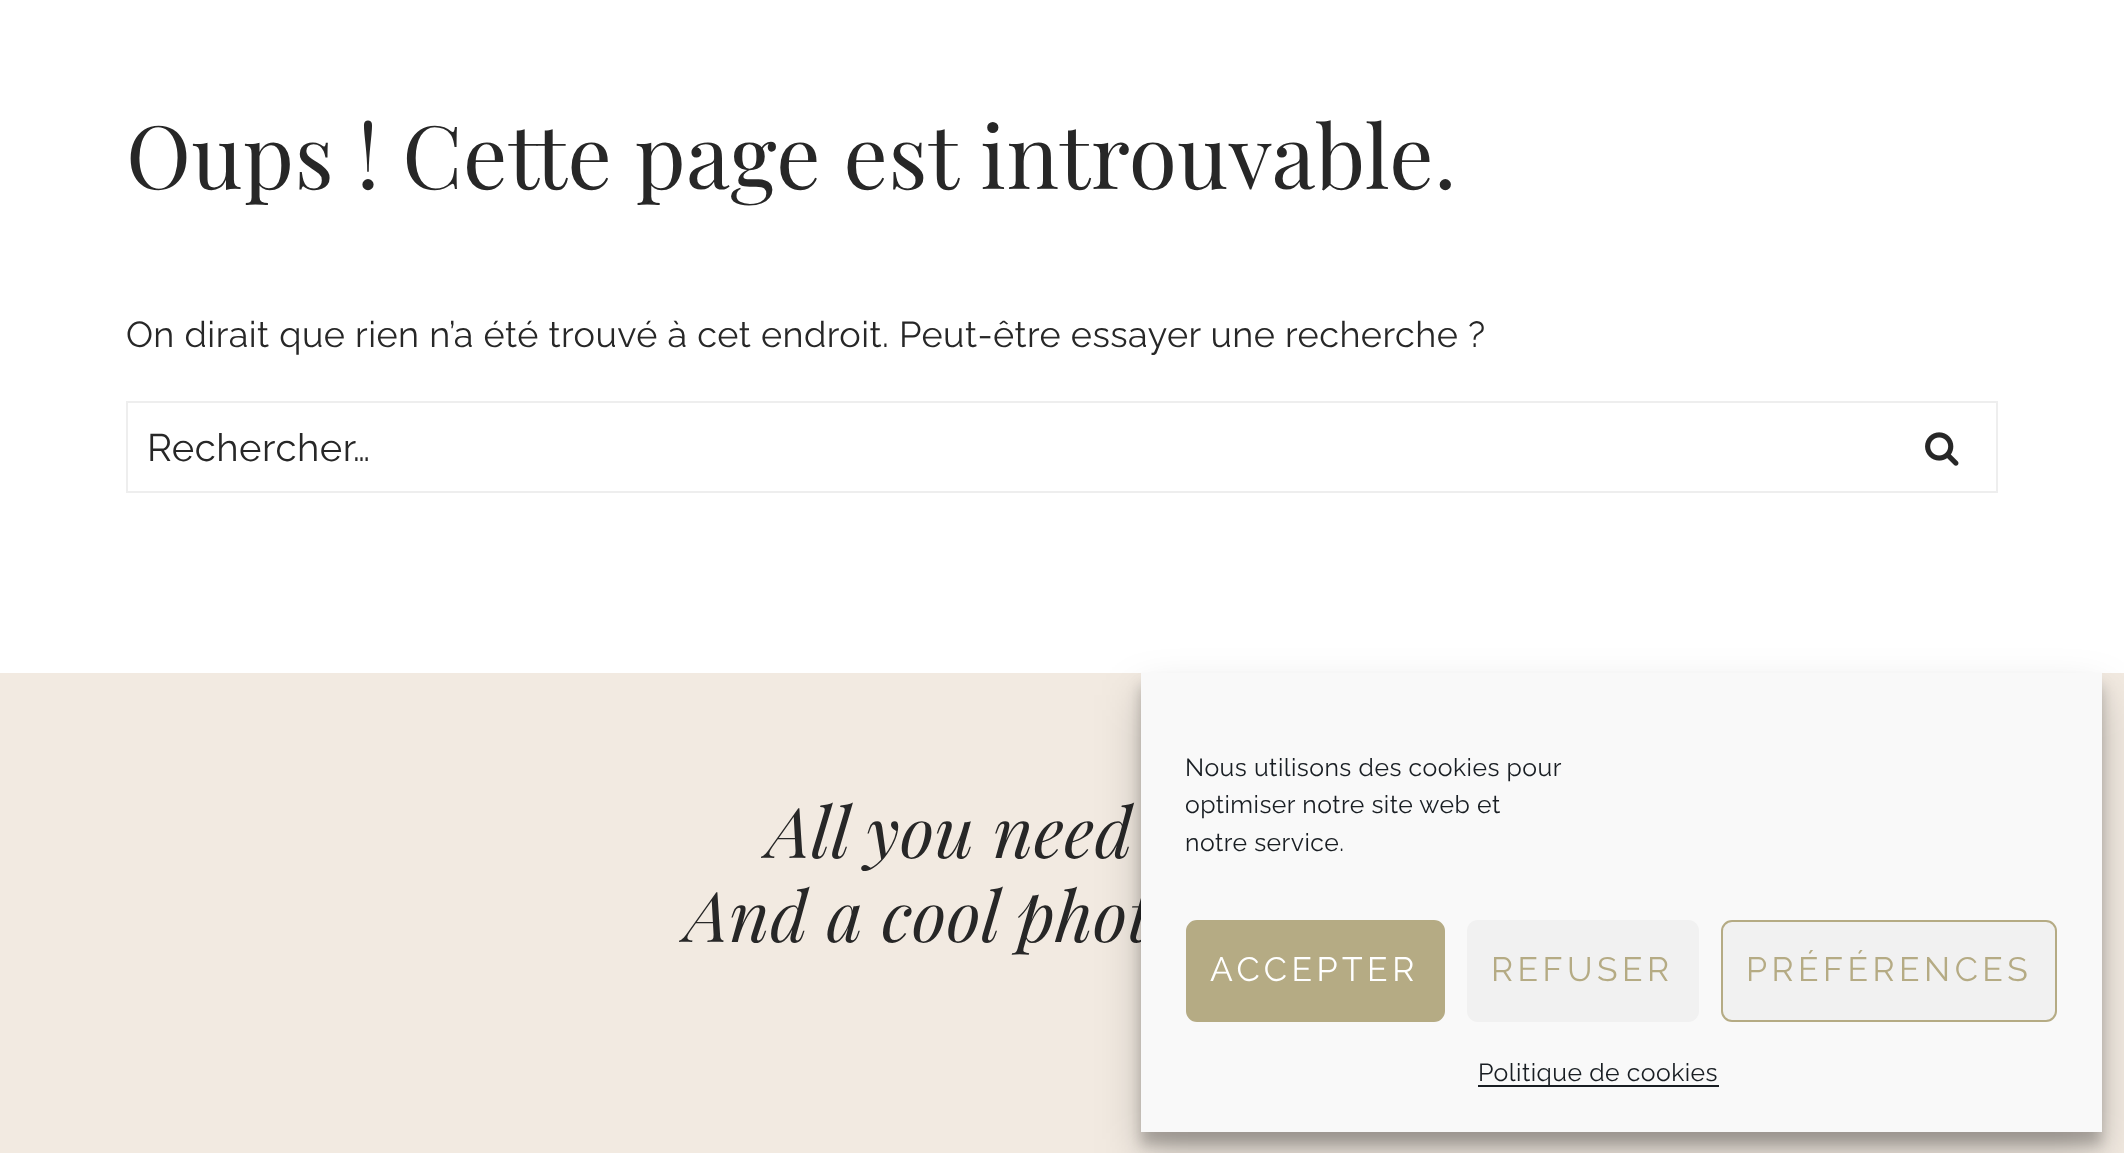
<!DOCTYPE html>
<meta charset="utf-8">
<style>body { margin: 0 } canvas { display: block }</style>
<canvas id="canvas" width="2124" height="1153"></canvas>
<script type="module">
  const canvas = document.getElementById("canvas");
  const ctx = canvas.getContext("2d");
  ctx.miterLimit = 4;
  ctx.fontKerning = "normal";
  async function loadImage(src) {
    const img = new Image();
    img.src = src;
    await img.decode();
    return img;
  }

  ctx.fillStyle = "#ffffff";
  ctx.fillRect(0, 0, 2124, 1153);
  ctx.letterSpacing = "0.47px";
  ctx.font = "87.75px Playfair Display";
  ctx.fillStyle = "#272727";
  ctx.fillText("Oups ! Cette page est introuvable.", 126, 189);
  ctx.font = "36px Raleway";
  ctx.fillText("On dirait que rien n’a été trouvé à cet endroit. Peut-être essayer une recherche ?", 126, 347);
  ctx.strokeStyle = "#eeeeee";
  ctx.lineWidth = 2;
  ctx.strokeRect(127, 402, 1870, 90);
  ctx.letterSpacing = "0.5px";
  ctx.font = "38.25px Raleway";
  ctx.fillText("Rechercher…", 147, 461);
  ctx.drawImage(await loadImage("img1.png"), 1925, 432, 34, 34);
  ctx.fillStyle = "#f2eae1";
  ctx.fillRect(0, 673, 2124, 480);
  ctx.letterSpacing = "0.47px";
  ctx.font = "italic 69.75px Playfair Display";
  ctx.fillStyle = "#272727";
  ctx.fillText("All you need", 767, 858);
  ctx.fillText("And a cool phot", 685, 942);
  ctx.fillStyle = "rgba(0, 0, 0, 0.23)";
  ctx.filter = "blur(7px)";
  ctx.beginPath();
  ctx.rect(1141, 686, 961, 459);
  ctx.fill();
  ctx.filter = "none";
  ctx.fillStyle = "rgba(0, 0, 0, 0.19)";
  ctx.filter = "blur(22.5px)";
  ctx.beginPath();
  ctx.rect(1141, 695, 961, 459);
  ctx.fill();
  ctx.filter = "none";
  ctx.fillStyle = "#f9f9f9";
  ctx.fillRect(1141, 673, 961, 459);
  ctx.font = "24.75px Raleway";
  ctx.fillStyle = "#191e23";
  ctx.fillText("Nous utilisons des cookies pour", 1185, 776);
  ctx.fillText("optimiser notre site web et", 1185, 813);
  ctx.fillText("notre service.", 1185, 851);
  ctx.fillStyle = "#b5ab84";
  ctx.beginPath();
  ctx.roundRect(1187, 921, 257, 100, 10);
  ctx.fill();
  ctx.strokeStyle = "#b5ab84";
  ctx.stroke();
  ctx.letterSpacing = "4.5px";
  ctx.font = "33.75px Raleway";
  ctx.fillStyle = "#ffffff";
  ctx.fillText("ACCEPTER", 1210, 981);
  ctx.fillStyle = "#f1f1f1";
  ctx.beginPath();
  ctx.roundRect(1467, 920, 232, 102, 11);
  ctx.fill();
  ctx.fillStyle = "#b5ab84";
  ctx.fillText("REFUSER", 1491, 981);
  ctx.fillStyle = "#f1f1f1";
  ctx.beginPath();
  ctx.roundRect(1722, 921, 334, 100, 10);
  ctx.fill();
  ctx.stroke();
  ctx.fillStyle = "#b5ab84";
  ctx.fillText("PRÉFÉRENCES", 1746, 981);
  ctx.fillStyle = "#191e23";
  ctx.fillRect(1478, 1085, 241, 2);
  ctx.letterSpacing = "0.47px";
  ctx.font = "24.75px Raleway";
  ctx.fillText("Politique de cookies", 1478, 1081);
</script>
